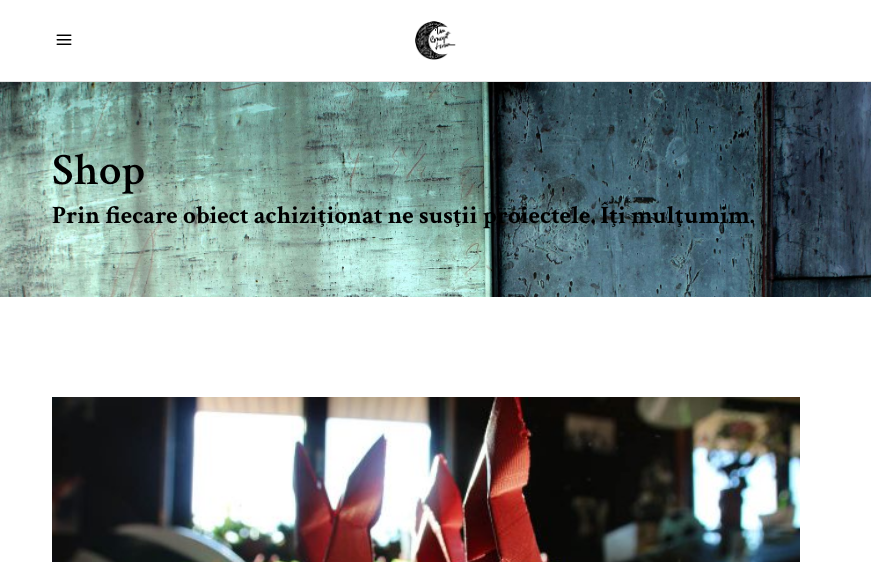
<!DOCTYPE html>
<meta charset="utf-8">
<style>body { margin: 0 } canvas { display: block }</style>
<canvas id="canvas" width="871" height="562"></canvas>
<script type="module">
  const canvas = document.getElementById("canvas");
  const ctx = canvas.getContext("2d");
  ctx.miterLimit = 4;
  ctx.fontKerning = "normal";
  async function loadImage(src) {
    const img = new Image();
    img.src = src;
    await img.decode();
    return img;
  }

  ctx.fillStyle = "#ffffff";
  ctx.fillRect(0, 0, 871, 562);
  ctx.fillStyle = "#e1e1e1";
  ctx.fillRect(0, 81, 871, 1);
  ctx.drawImage(await loadImage("img1.png"), 56, 34, 16, 11);
  ctx.drawImage(await loadImage("img2.png"), 415, 21, 41, 39);
  ctx.drawImage(await loadImage("img3.png"), 0, 82, 871, 215);
  ctx.font = "600 45px Crimson Text";
  ctx.fillStyle = "#000000";
  ctx.fillText("Shop", 52, 184);
  ctx.font = "bold 25px Crimson Text";
  ctx.fillText("Prin fiecare obiect achiziţionat ne susţii proiectele. Îţi mulţumim.", 52, 223);
  ctx.drawImage(await loadImage("img4.png"), 52, 397, 748, 165);
</script>
